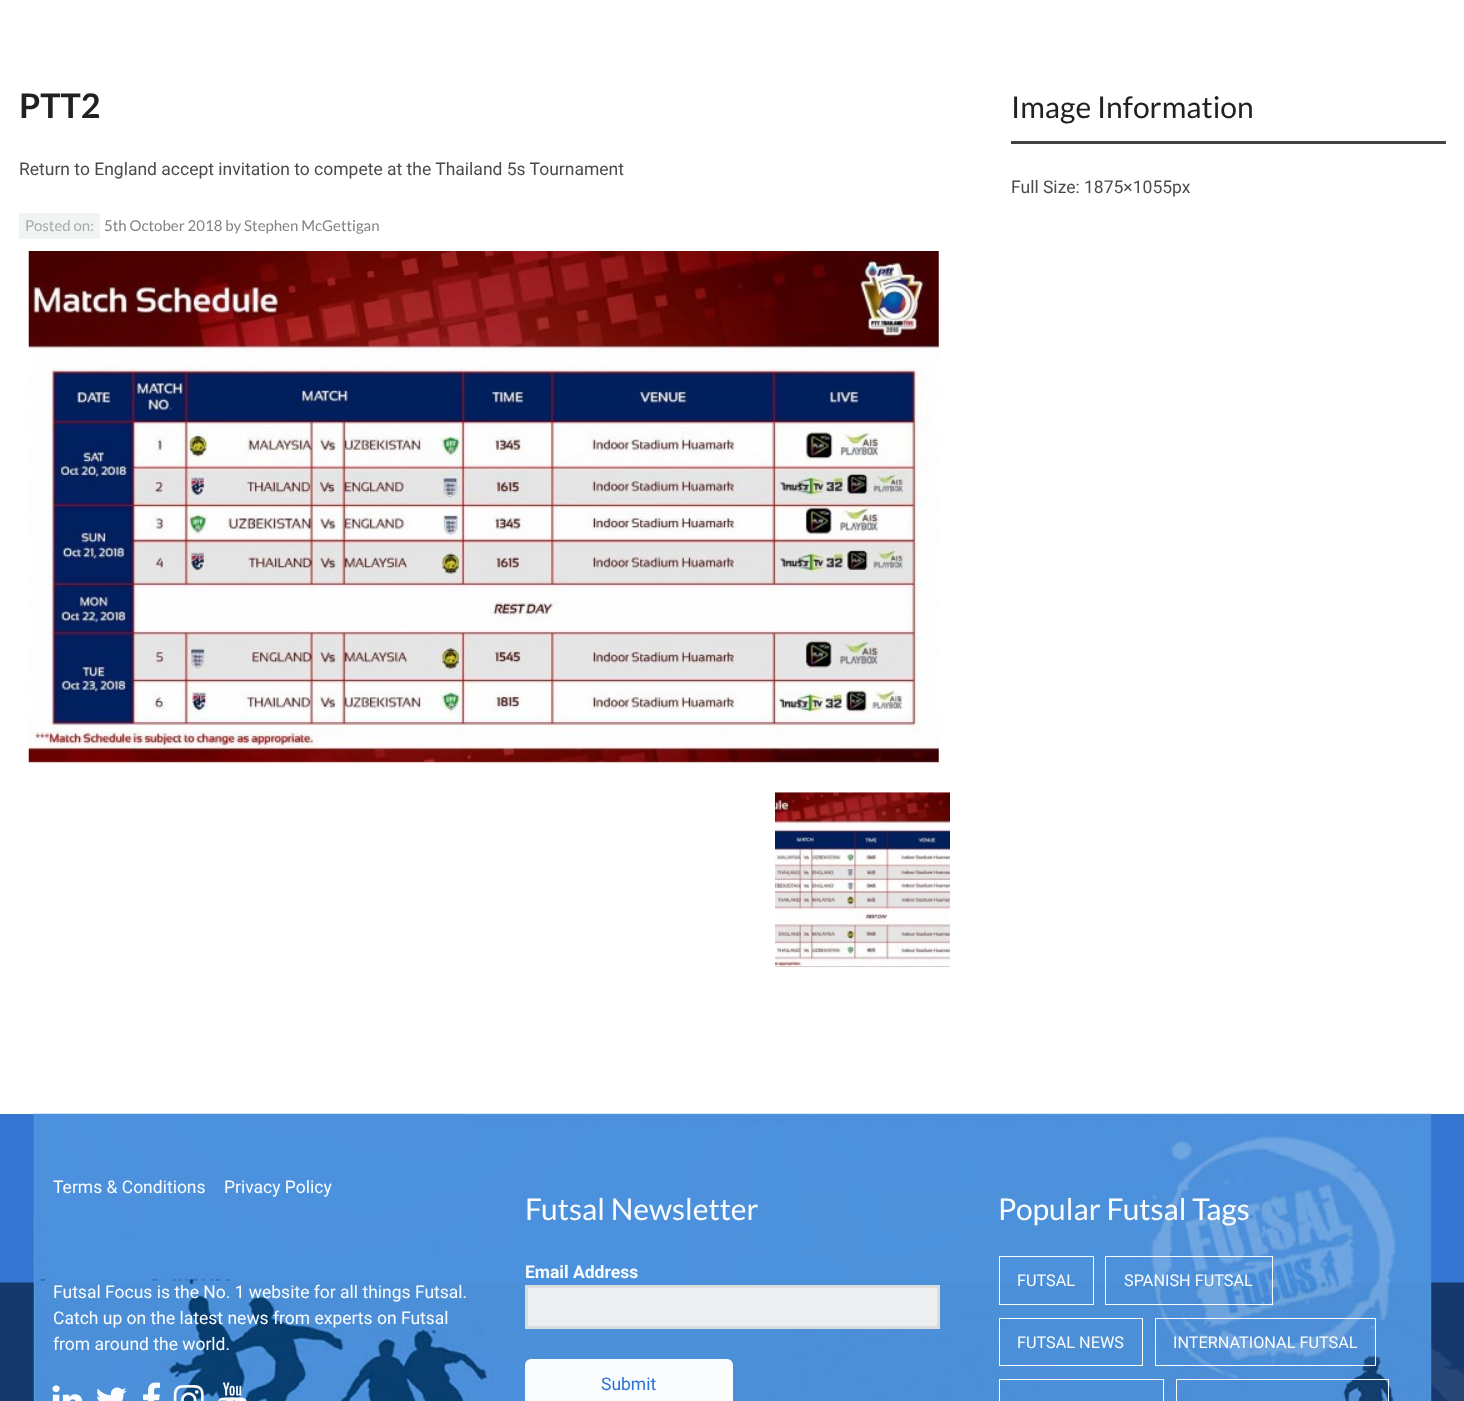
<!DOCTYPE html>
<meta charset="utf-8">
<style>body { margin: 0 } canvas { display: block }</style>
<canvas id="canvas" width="1464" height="1401"></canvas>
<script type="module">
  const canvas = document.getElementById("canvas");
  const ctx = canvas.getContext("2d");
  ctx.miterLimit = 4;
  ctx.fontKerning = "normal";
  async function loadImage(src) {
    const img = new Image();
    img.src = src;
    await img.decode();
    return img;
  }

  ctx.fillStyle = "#ffffff";
  ctx.fillRect(0, 0, 1464, 1401);
  ctx.drawImage(await loadImage("img1.png"), 0, 1114, 1464, 287);
  ctx.font = "bold 34px Lato";
  ctx.fillStyle = "#212121";
  ctx.fillText("PTT2", 19, 118);
  ctx.font = "17.5px Roboto";
  ctx.fillStyle = "#4b4b4b";
  ctx.fillText("Return to England accept invitation to compete at the Thailand 5s Tournament", 19, 175);
  ctx.fillStyle = "#f0f4f5";
  ctx.fillRect(19, 213, 81, 26);
  ctx.font = "15px Lato";
  ctx.fillStyle = "#aaaaaa";
  ctx.fillText("Posted on:", 25, 231);
  ctx.fillStyle = "#828282";
  ctx.fillText("5th October 2018 by Stephen McGettigan", 104, 231);
  ctx.drawImage(await loadImage("img2.png"), 28, 251, 911, 512);
  ctx.drawImage(await loadImage("img3.png"), 775, 792, 175, 176);
  ctx.fillStyle = "#444444";
  ctx.fillRect(1011, 141, 435, 3);
  ctx.font = "30px Lato";
  ctx.fillStyle = "#212121";
  ctx.fillText("Image Information", 1011, 118);
  ctx.font = "17.5px Roboto";
  ctx.fillStyle = "#4b4b4b";
  ctx.fillText("Full Size: 1875×1055px", 1011, 193);
  ctx.drawImage(await loadImage("img4.png"), 33, 1113, 1399, 288);
  ctx.fillStyle = "#fafcfe";
  ctx.fillText("Terms & Conditions", 53, 1193);
  ctx.fillText("Privacy Policy", 224, 1193);
  ctx.fillText("Futsal Focus is the No. 1 website for all things Futsal.", 53, 1298);
  ctx.fillText("Catch up on the latest news from experts on Futsal", 53, 1324);
  ctx.fillText("from around the world.", 53, 1350);
  ctx.drawImage(await loadImage("img5.png"), 52, 1385, 31, 16);
  ctx.drawImage(await loadImage("img6.png"), 97, 1387, 30, 14);
  ctx.drawImage(await loadImage("img7.png"), 143, 1382, 17, 19);
  ctx.drawImage(await loadImage("img8.png"), 173, 1385, 31, 16);
  ctx.drawImage(await loadImage("img9.png"), 218, 1382, 29, 19);
  ctx.font = "30px Lato";
  ctx.fillText("Futsal Newsletter", 525, 1220);
  ctx.font = "bold 17.5px Roboto";
  ctx.fillText("Email Address", 525, 1278);
  ctx.fillStyle = "#eceef0";
  ctx.beginPath();
  ctx.rect(526.5, 1286.5, 412, 41);
  ctx.fill();
  ctx.strokeStyle = "#dadcde";
  ctx.lineWidth = 3;
  ctx.stroke();
  ctx.fillStyle = "#fafcfe";
  ctx.beginPath();
  ctx.roundRect(525, 1359, 208, 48, 6);
  ctx.fill();
  ctx.font = "17.5px Roboto";
  ctx.fillStyle = "#2b74d5";
  ctx.fillText("Submit", 601, 1390);
  ctx.font = "30px Lato";
  ctx.fillStyle = "#fafcfe";
  ctx.fillText("Popular Futsal Tags", 998, 1220);
  ctx.strokeStyle = "rgba(255, 255, 255, 0.97)";
  ctx.lineWidth = 1;
  ctx.strokeRect(999.5, 1256.5, 94, 48);
  ctx.font = "16.25px Roboto";
  ctx.fillText("FUTSAL", 1017, 1286);
  ctx.strokeRect(1105.5, 1256.5, 167, 48);
  ctx.fillText("SPANISH FUTSAL", 1124, 1286);
  ctx.strokeStyle = "#fafcfe";
  ctx.strokeRect(999.5, 1318.5, 143, 47);
  ctx.fillText("FUTSAL NEWS", 1017, 1348);
  ctx.strokeStyle = "rgba(255, 255, 255, 0.97)";
  ctx.strokeRect(1155.5, 1318.5, 220, 47);
  ctx.fillText("INTERNATIONAL FUTSAL", 1173, 1348);
  ctx.strokeStyle = "#fafcfe";
  ctx.strokeRect(999.5, 1379.5, 164, 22);
  ctx.strokeStyle = "rgba(255, 255, 255, 0.97)";
  ctx.strokeRect(1176.5, 1379.5, 212, 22);
</script>
